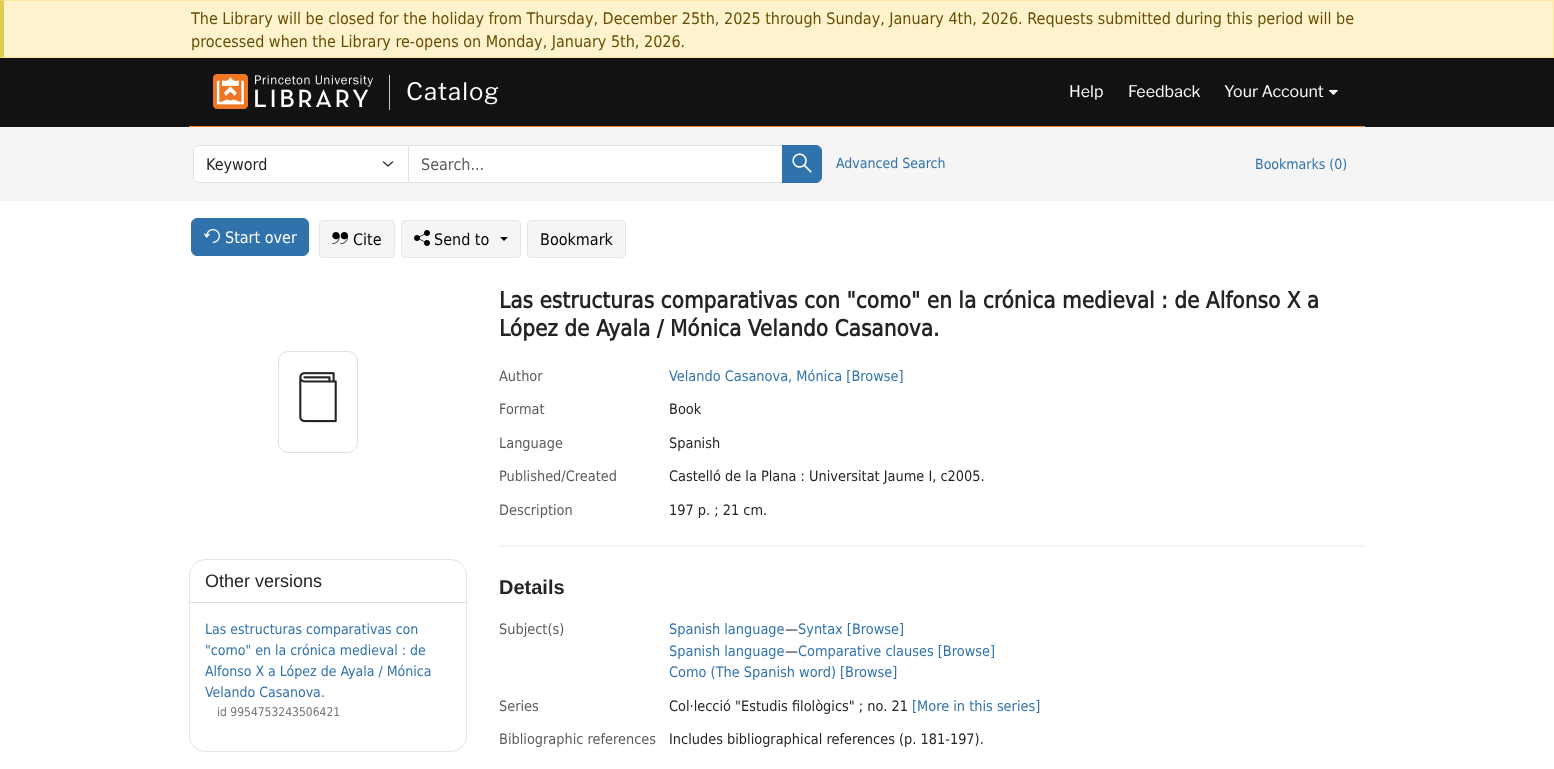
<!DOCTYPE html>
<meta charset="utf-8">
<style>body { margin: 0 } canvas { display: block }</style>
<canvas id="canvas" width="1554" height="769"></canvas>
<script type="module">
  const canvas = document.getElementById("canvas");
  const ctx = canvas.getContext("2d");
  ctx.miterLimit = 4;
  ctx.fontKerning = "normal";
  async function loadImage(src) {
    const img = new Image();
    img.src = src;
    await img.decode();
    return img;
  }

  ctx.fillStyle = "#f5f5f5";
  ctx.fillRect(0, 0, 1554, 769);
  ctx.fillStyle = "#fff3cd";
  ctx.fillRect(4, 1, 1549, 56);
  ctx.fillStyle = "#ffe69c";
  ctx.beginPath();
  ctx.moveTo(0, 0);
  ctx.lineTo(1554, 0);
  ctx.lineTo(1553, 1);
  ctx.lineTo(4, 1);
  ctx.closePath();
  ctx.fill();
  ctx.fillRect(1553, 0, 1, 58);
  ctx.beginPath();
  ctx.moveTo(1554, 58);
  ctx.lineTo(0, 58);
  ctx.lineTo(4, 57);
  ctx.lineTo(1553, 57);
  ctx.closePath();
  ctx.fill();
  ctx.fillStyle = "#e0cb52";
  ctx.beginPath();
  ctx.moveTo(0, 58);
  ctx.lineTo(0, 0);
  ctx.lineTo(4, 1);
  ctx.lineTo(4, 57);
  ctx.closePath();
  ctx.fill();
  ctx.font = "16px DejaVu Sans";
  ctx.fillStyle = "#664d03";
  ctx.fillText("The Library will be closed for the holiday from Thursday, December 25th, 2025 through Sunday, January 4th, 2026. Requests submitted during this period will be", 191, 24);
  ctx.fillText("processed when the Library re-opens on Monday, January 5th, 2026.", 191, 47);
  ctx.fillStyle = "#121212";
  ctx.fillRect(0, 58, 1554, 69);
  ctx.fillStyle = "#f58025";
  ctx.fillRect(189, 126, 1176, 1);
  ctx.drawImage(await loadImage("img1.png"), 213, 74, 160, 35);
  ctx.fillStyle = "#c5c8ce";
  ctx.fillRect(389, 75, 1, 35);
  ctx.letterSpacing = "1px";
  ctx.font = "24px Libre Franklin";
  ctx.fillStyle = "#ffffff";
  ctx.fillText("Catalog", 406, 100);
  ctx.letterSpacing = "0px";
  ctx.font = "16px Libre Franklin";
  ctx.fillText("Help", 1069, 97);
  ctx.fillText("Feedback", 1128, 97);
  ctx.drawImage(await loadImage("img2.png"), 1329, 89, 9, 6);
  ctx.fillText("Your Account", 1224, 97);
  ctx.beginPath();
  ctx.rect(408.5, 145.5, 374, 37);
  ctx.fill();
  ctx.strokeStyle = "#dee2e6";
  ctx.stroke();
  ctx.beginPath();
  ctx.roundRect(193, 145, 216, 38, [6, 0, 0, 6]);
  ctx.fill();
  ctx.beginPath();
  ctx.moveTo(383.5, 162);
  ctx.lineTo(388, 166);
  ctx.lineTo(392.5, 162);
  ctx.strokeStyle = "#343a40";
  ctx.lineWidth = 1.5;
  ctx.lineCap = "round";
  ctx.lineJoin = "round";
  ctx.stroke();
  ctx.beginPath();
  ctx.roundRect(193.5, 145.5, 215, 37, [5.5, 0, 0, 5.5]);
  ctx.strokeStyle = "#dee2e6";
  ctx.lineWidth = 1;
  ctx.lineJoin = "miter";
  ctx.stroke();
  ctx.font = "16px DejaVu Sans";
  ctx.fillStyle = "#242424";
  ctx.fillText("Keyword", 206, 170);
  ctx.fillStyle = "#595c5f";
  ctx.fillText("Search...", 421, 170);
  ctx.fillStyle = "#3072ab";
  ctx.beginPath();
  ctx.roundRect(782.5, 145.5, 39, 37, [0, 5.5, 5.5, 0]);
  ctx.fill();
  ctx.strokeStyle = "#3072ab";
  ctx.stroke();
  ctx.drawImage(await loadImage("img3.png"), 792, 153, 20, 20);
  ctx.font = "14px DejaVu Sans";
  ctx.fillText("Advanced Search", 836, 168);
  ctx.fillText("Bookmarks (0)", 1255, 169);
  ctx.fillStyle = "#ffffff";
  ctx.fillRect(0, 201, 1554, 568);
  ctx.fillStyle = "#3072ab";
  ctx.beginPath();
  ctx.roundRect(191.5, 218.5, 117, 37, 5.5);
  ctx.fill();
  ctx.stroke();
  ctx.drawImage(await loadImage("img4.png"), 204, 229, 16, 14);
  ctx.font = "16px DejaVu Sans";
  ctx.fillStyle = "#ffffff";
  ctx.fillText("Start over", 225, 243);
  ctx.fillStyle = "#f5f5f5";
  ctx.beginPath();
  ctx.roundRect(319.5, 220.5, 75, 37, 3.5);
  ctx.fill();
  ctx.strokeStyle = "#e8e6df";
  ctx.stroke();
  ctx.drawImage(await loadImage("img5.png"), 332, 232, 16, 12);
  ctx.fillStyle = "#000000";
  ctx.fillText("Cite", 353, 245);
  ctx.fillStyle = "#f5f5f5";
  ctx.beginPath();
  ctx.roundRect(401.5, 220.5, 119, 37, 3.5);
  ctx.fill();
  ctx.stroke();
  ctx.drawImage(await loadImage("img6.png"), 414, 230, 16, 16);
  ctx.fillStyle = "#000000";
  ctx.fillText("Send to", 434, 245);
  ctx.beginPath();
  ctx.moveTo(500, 237);
  ctx.lineTo(508, 237);
  ctx.lineTo(504, 241);
  ctx.closePath();
  ctx.fill();
  ctx.fillStyle = "#f5f5f5";
  ctx.beginPath();
  ctx.roundRect(527.5, 220.5, 98, 37, 3.5);
  ctx.fill();
  ctx.stroke();
  ctx.fillStyle = "#000000";
  ctx.fillText("Bookmark", 540, 245);
  ctx.beginPath();
  ctx.roundRect(278.5, 351.5, 79, 101, 9.5);
  ctx.strokeStyle = "#e1e1e1";
  ctx.stroke();
  ctx.drawImage(await loadImage("img7.png"), 299, 372, 38, 51);
  ctx.font = "bold 22.4px DejaVu Sans";
  ctx.fillStyle = "#242424";
  ctx.fillText("Las estructuras comparativas con \"como\" en la crónica medieval : de Alfonso X a", 499, 308);
  ctx.fillText("López de Ayala / Mónica Velando Casanova.", 499, 336);
  ctx.fillStyle = "#f5f5f5";
  ctx.fillRect(499, 545, 866, 2);
  ctx.font = "14.4px DejaVu Sans";
  ctx.fillStyle = "#595c5f";
  ctx.fillText("Author", 499, 381);
  ctx.fillStyle = "#3072ab";
  ctx.fillText("Velando Casanova, Mónica [Browse]", 669, 381);
  ctx.fillStyle = "#595c5f";
  ctx.fillText("Format", 499, 414);
  ctx.fillStyle = "#242424";
  ctx.fillText("Book", 669, 414);
  ctx.fillStyle = "#595c5f";
  ctx.fillText("Language", 499, 448);
  ctx.fillStyle = "#242424";
  ctx.fillText("Spanish", 669, 448);
  ctx.fillStyle = "#595c5f";
  ctx.fillText("Published/Created", 499, 481);
  ctx.fillStyle = "#242424";
  ctx.fillText("Castelló de la Plana : Universitat Jaume I, c2005.", 669, 481);
  ctx.fillStyle = "#595c5f";
  ctx.fillText("Description", 499, 515);
  ctx.fillStyle = "#242424";
  ctx.fillText("197 p. ; 21 cm.", 669, 515);
  ctx.font = "bold 20px Liberation Sans";
  ctx.fillText("Details", 499, 594);
  ctx.font = "14.4px DejaVu Sans";
  ctx.fillStyle = "#595c5f";
  ctx.fillText("Subject(s)", 499, 634);
  ctx.fillStyle = "#3072ab";
  ctx.fillText("Spanish language", 669, 634);
  ctx.fillStyle = "#242424";
  ctx.fillText("—", 785, 634);
  ctx.fillStyle = "#3072ab";
  ctx.fillText("Syntax [Browse]", 798, 634);
  ctx.fillText("Spanish language", 669, 656);
  ctx.fillStyle = "#242424";
  ctx.fillText("—", 785, 656);
  ctx.fillStyle = "#3072ab";
  ctx.fillText("Comparative clauses [Browse]", 798, 656);
  ctx.fillText("Como (The Spanish word) [Browse]", 669, 677);
  ctx.fillStyle = "#595c5f";
  ctx.fillText("Series", 499, 711);
  ctx.fillStyle = "#242424";
  ctx.fillText("Col·lecció \"Estudis filològics\" ; no. 21", 669, 711);
  ctx.fillStyle = "#3072ab";
  ctx.fillText("[More in this series]", 912, 711);
  ctx.fillStyle = "#595c5f";
  ctx.fillText("Bibliographic references", 499, 744);
  ctx.fillStyle = "#242424";
  ctx.fillText("Includes bibliographical references (p. 181-197).", 669, 744);
  ctx.beginPath();
  ctx.roundRect(189.5, 559.5, 277, 192, 15.5);
  ctx.strokeStyle = "#e8e6df";
  ctx.stroke();
  ctx.fillStyle = "#dddddd";
  ctx.fillRect(190, 602, 276, 1);
  ctx.font = "18px Liberation Sans";
  ctx.fillStyle = "#242424";
  ctx.fillText("Other versions", 205, 587);
  ctx.font = "14px DejaVu Sans";
  ctx.fillStyle = "#3072ab";
  ctx.fillText("Las estructuras comparativas con", 205, 634);
  ctx.fillText("\"como\" en la crónica medieval : de", 205, 655);
  ctx.fillText("Alfonso X a López de Ayala / Mónica", 205, 676);
  ctx.fillText("Velando Casanova.", 205, 697);
  ctx.font = "12px DejaVu Sans";
  ctx.fillStyle = "#757575";
  ctx.fillText("id 9954753243506421", 217, 716);
</script>
